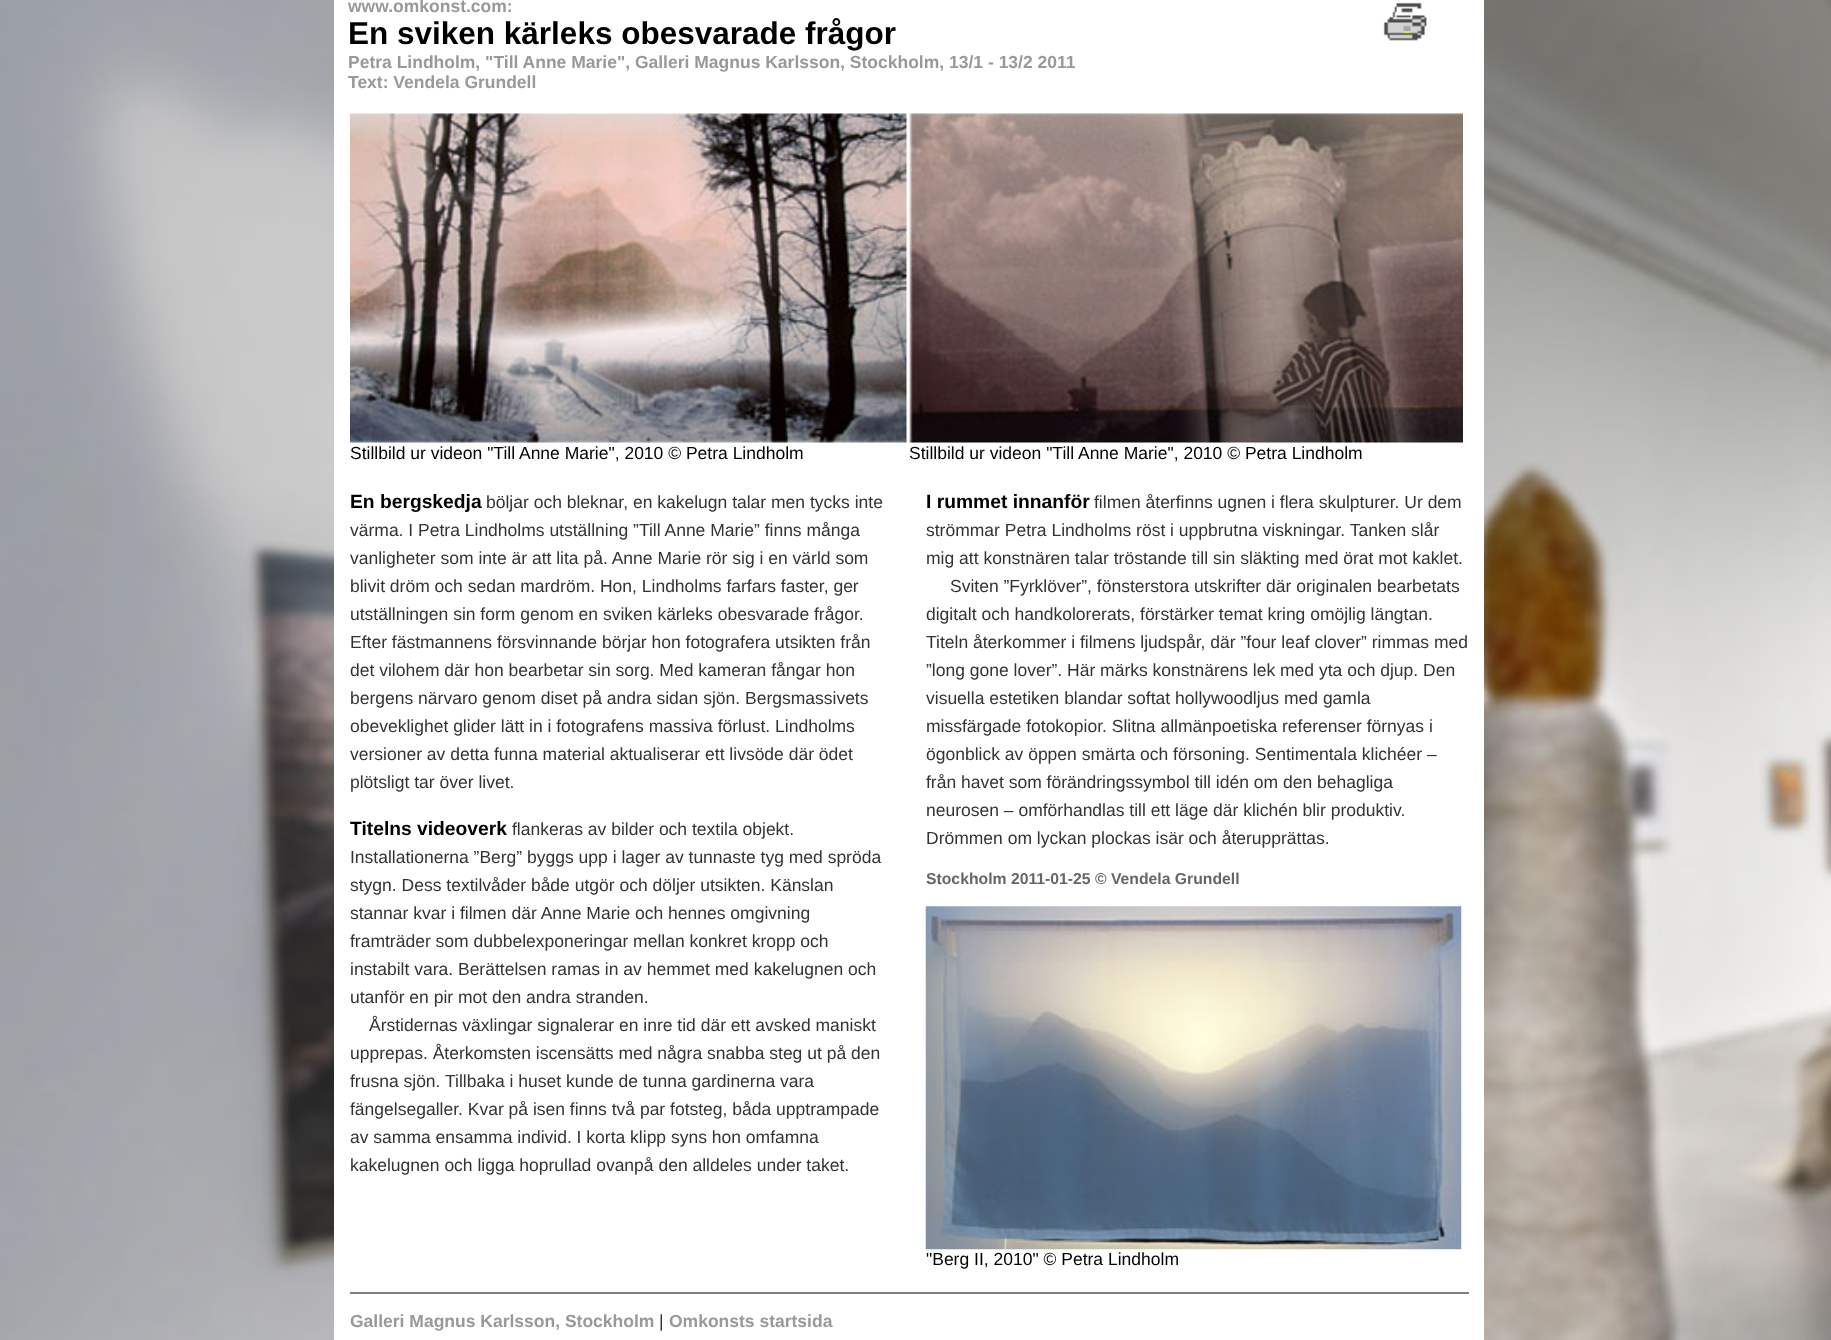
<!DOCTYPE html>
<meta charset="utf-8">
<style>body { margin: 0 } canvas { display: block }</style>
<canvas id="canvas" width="1831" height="1340"></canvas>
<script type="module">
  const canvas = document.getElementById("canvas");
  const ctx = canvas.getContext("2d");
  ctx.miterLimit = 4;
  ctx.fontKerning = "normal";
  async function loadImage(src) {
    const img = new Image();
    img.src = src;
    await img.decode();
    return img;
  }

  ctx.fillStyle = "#ffffff";
  ctx.fillRect(0, 0, 1831, 1340);
  ctx.drawImage(await loadImage("img1.png"), 0, 0, 1831, 1340);
  ctx.fillRect(334, 0, 1150, 1340);
  ctx.font = "bold 17.5px Liberation Sans";
  ctx.fillStyle = "#999999";
  ctx.fillText("www.omkonst.com:", 348, 12);
  ctx.font = "bold 31.5px Liberation Sans";
  ctx.fillStyle = "#000000";
  ctx.fillText("En sviken kärleks obesvarade frågor", 348, 44);
  ctx.font = "bold 17.5px Liberation Sans";
  ctx.fillStyle = "#999999";
  ctx.fillText("Petra Lindholm, \"Till Anne Marie\", Galleri Magnus Karlsson, Stockholm, 13/1 - 13/2 2011", 348, 68);
  ctx.fillText("Text: Vendela Grundell", 348, 88);
  ctx.drawImage(await loadImage("img2.png"), 1383, 2, 44, 39);
  ctx.drawImage(await loadImage("img3.png"), 350, 113, 1113, 330);
  ctx.font = "17.5px Liberation Sans";
  ctx.fillStyle = "#000000";
  ctx.fillText("Stillbild ur videon \"Till Anne Marie\", 2010 © Petra Lindholm", 350, 459);
  ctx.fillText("Stillbild ur videon \"Till Anne Marie\", 2010 © Petra Lindholm", 909, 459);
  ctx.font = "bold 19.25px Liberation Sans";
  ctx.fillText("En bergskedja", 350, 508);
  ctx.font = "17.5px Liberation Sans";
  ctx.fillStyle = "#333333";
  ctx.fillText("böljar och bleknar, en kakelugn talar men tycks inte", 486, 508);
  ctx.fillText("värma. I Petra Lindholms utställning ”Till Anne Marie” finns många", 350, 536);
  ctx.fillText("vanligheter som inte är att lita på. Anne Marie rör sig i en värld som", 350, 564);
  ctx.fillText("blivit dröm och sedan mardröm. Hon, Lindholms farfars faster, ger", 350, 592);
  ctx.fillText("utställningen sin form genom en sviken kärleks obesvarade frågor.", 350, 620);
  ctx.fillText("Efter fästmannens försvinnande börjar hon fotografera utsikten från", 350, 648);
  ctx.fillText("det vilohem där hon bearbetar sin sorg. Med kameran fångar hon", 350, 676);
  ctx.fillText("bergens närvaro genom diset på andra sidan sjön. Bergsmassivets", 350, 704);
  ctx.fillText("obeveklighet glider lätt in i fotografens massiva förlust. Lindholms", 350, 732);
  ctx.fillText("versioner av detta funna material aktualiserar ett livsöde där ödet", 350, 760);
  ctx.fillText("plötsligt tar över livet.", 350, 788);
  ctx.font = "bold 19.25px Liberation Sans";
  ctx.fillStyle = "#000000";
  ctx.fillText("Titelns videoverk", 350, 835);
  ctx.font = "17.5px Liberation Sans";
  ctx.fillStyle = "#333333";
  ctx.fillText("flankeras av bilder och textila objekt.", 512, 835);
  ctx.fillText("Installationerna ”Berg” byggs upp i lager av tunnaste tyg med spröda", 350, 863);
  ctx.fillText("stygn. Dess textilvåder både utgör och döljer utsikten. Känslan", 350, 891);
  ctx.fillText("stannar kvar i filmen där Anne Marie och hennes omgivning", 350, 919);
  ctx.fillText("framträder som dubbelexponeringar mellan konkret kropp och", 350, 947);
  ctx.fillText("instabilt vara. Berättelsen ramas in av hemmet med kakelugnen och", 350, 975);
  ctx.fillText("utanför en pir mot den andra stranden.", 350, 1003);
  ctx.fillText("Årstidernas växlingar signalerar en inre tid där ett avsked maniskt", 369, 1031);
  ctx.fillText("upprepas. Återkomsten iscensätts med några snabba steg ut på den", 350, 1059);
  ctx.fillText("frusna sjön. Tillbaka i huset kunde de tunna gardinerna vara", 350, 1087);
  ctx.fillText("fängelsegaller. Kvar på isen finns två par fotsteg, båda upptrampade", 350, 1115);
  ctx.fillText("av samma ensamma individ. I korta klipp syns hon omfamna", 350, 1143);
  ctx.fillText("kakelugnen och ligga hoprullad ovanpå den alldeles under taket.", 350, 1171);
  ctx.font = "bold 19.25px Liberation Sans";
  ctx.fillStyle = "#000000";
  ctx.fillText("I rummet innanför", 926, 508);
  ctx.font = "17.5px Liberation Sans";
  ctx.fillStyle = "#333333";
  ctx.fillText("filmen återfinns ugnen i flera skulpturer. Ur dem", 1094, 508);
  ctx.fillText("strömmar Petra Lindholms röst i uppbrutna viskningar. Tanken slår", 926, 536);
  ctx.fillText("mig att konstnären talar tröstande till sin släkting med örat mot kaklet.", 926, 564);
  ctx.fillText("Sviten ”Fyrklöver”, fönsterstora utskrifter där originalen bearbetats", 950, 592);
  ctx.fillText("digitalt och handkolorerats, förstärker temat kring omöjlig längtan.", 926, 620);
  ctx.fillText("Titeln återkommer i filmens ljudspår, där ”four leaf clover” rimmas med", 926, 648);
  ctx.fillText("”long gone lover”. Här märks konstnärens lek med yta och djup. Den", 926, 676);
  ctx.fillText("visuella estetiken blandar softat hollywoodljus med gamla", 926, 704);
  ctx.fillText("missfärgade fotokopior. Slitna allmänpoetiska referenser förnyas i", 926, 732);
  ctx.fillText("ögonblick av öppen smärta och försoning. Sentimentala klichéer –", 926, 760);
  ctx.fillText("från havet som förändringssymbol till idén om den behagliga", 926, 788);
  ctx.fillText("neurosen – omförhandlas till ett läge där klichén blir produktiv.", 926, 816);
  ctx.fillText("Drömmen om lyckan plockas isär och återupprättas.", 926, 844);
  ctx.font = "bold 15.75px Liberation Sans";
  ctx.fillStyle = "#666666";
  ctx.fillText("Stockholm 2011-01-25 © Vendela Grundell", 926, 884);
  ctx.drawImage(await loadImage("img4.png"), 925, 906, 537, 344);
  ctx.font = "17.5px Liberation Sans";
  ctx.fillStyle = "#000000";
  ctx.fillText("\"Berg II, 2010\" © Petra Lindholm", 926, 1265);
  ctx.fillStyle = "#808080";
  ctx.fillRect(350, 1292, 1119, 2);
  ctx.font = "bold 17.5px Liberation Sans";
  ctx.fillStyle = "#999999";
  ctx.fillText("Galleri Magnus Karlsson, Stockholm", 350, 1327);
  ctx.font = "17.5px Liberation Sans";
  ctx.fillStyle = "#333333";
  ctx.fillText("|", 659, 1327);
  ctx.font = "bold 17.5px Liberation Sans";
  ctx.fillStyle = "#999999";
  ctx.fillText("Omkonsts startsida", 669, 1327);
</script>
